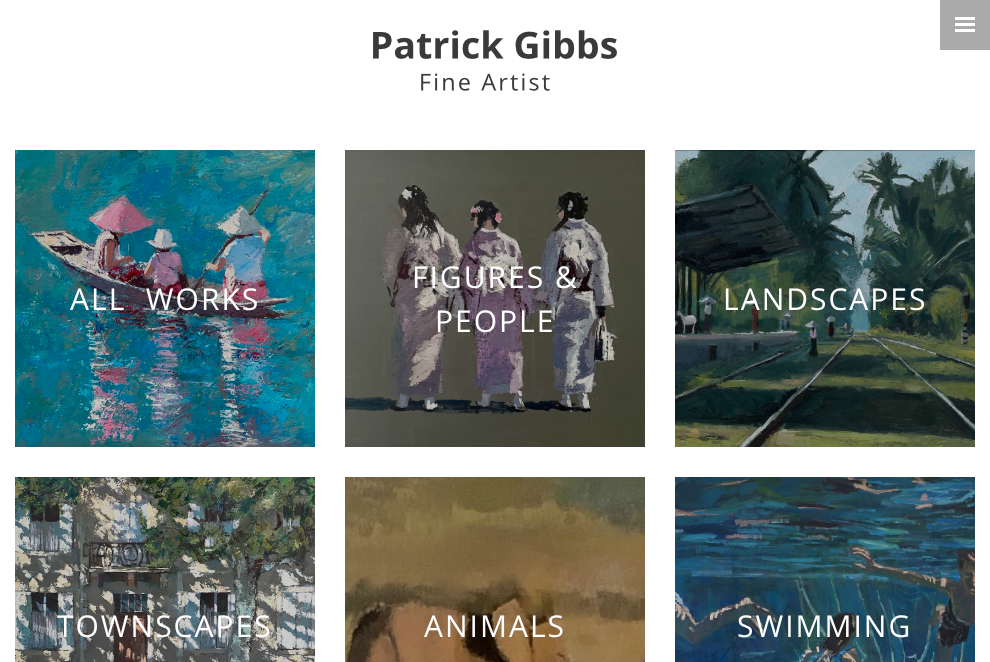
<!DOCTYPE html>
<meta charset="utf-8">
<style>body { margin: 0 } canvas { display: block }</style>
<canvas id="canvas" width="990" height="662"></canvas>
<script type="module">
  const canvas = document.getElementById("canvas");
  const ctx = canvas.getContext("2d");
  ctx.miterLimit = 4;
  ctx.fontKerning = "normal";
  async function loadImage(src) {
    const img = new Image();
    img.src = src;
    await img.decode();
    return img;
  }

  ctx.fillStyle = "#ffffff";
  ctx.fillRect(0, 0, 990, 662);
  ctx.fillStyle = "#aaaaaa";
  ctx.fillRect(940, 0, 50, 50);
  ctx.fillStyle = "#ffffff";
  ctx.fillRect(955, 23, 20, 3);
  ctx.fillRect(955, 29, 20, 3);
  ctx.fillRect(955, 17, 20, 3);
  ctx.drawImage(await loadImage("img1.png"), 373, 30, 244, 61);
  ctx.drawImage(await loadImage("img2.png"), 15, 150, 300, 297);
  ctx.letterSpacing = "2px";
  ctx.font = "30px Open Sans";
  ctx.fillText("ALL  WORKS", 70, 310);
  ctx.drawImage(await loadImage("img3.png"), 345, 150, 300, 297);
  ctx.fillText("FIGURES &", 412, 288);
  ctx.fillText("PEOPLE", 435, 332);
  ctx.drawImage(await loadImage("img4.png"), 675, 150, 300, 297);
  ctx.fillText("LANDSCAPES", 723, 310);
  ctx.drawImage(await loadImage("img5.png"), 15, 477, 300, 185);
  ctx.fillText("TOWNSCAPES", 57, 637);
  ctx.drawImage(await loadImage("img6.png"), 345, 477, 300, 185);
  ctx.fillText("ANIMALS", 424, 637);
  ctx.drawImage(await loadImage("img7.png"), 675, 477, 300, 185);
  ctx.fillText("SWIMMING", 737, 637);
</script>
